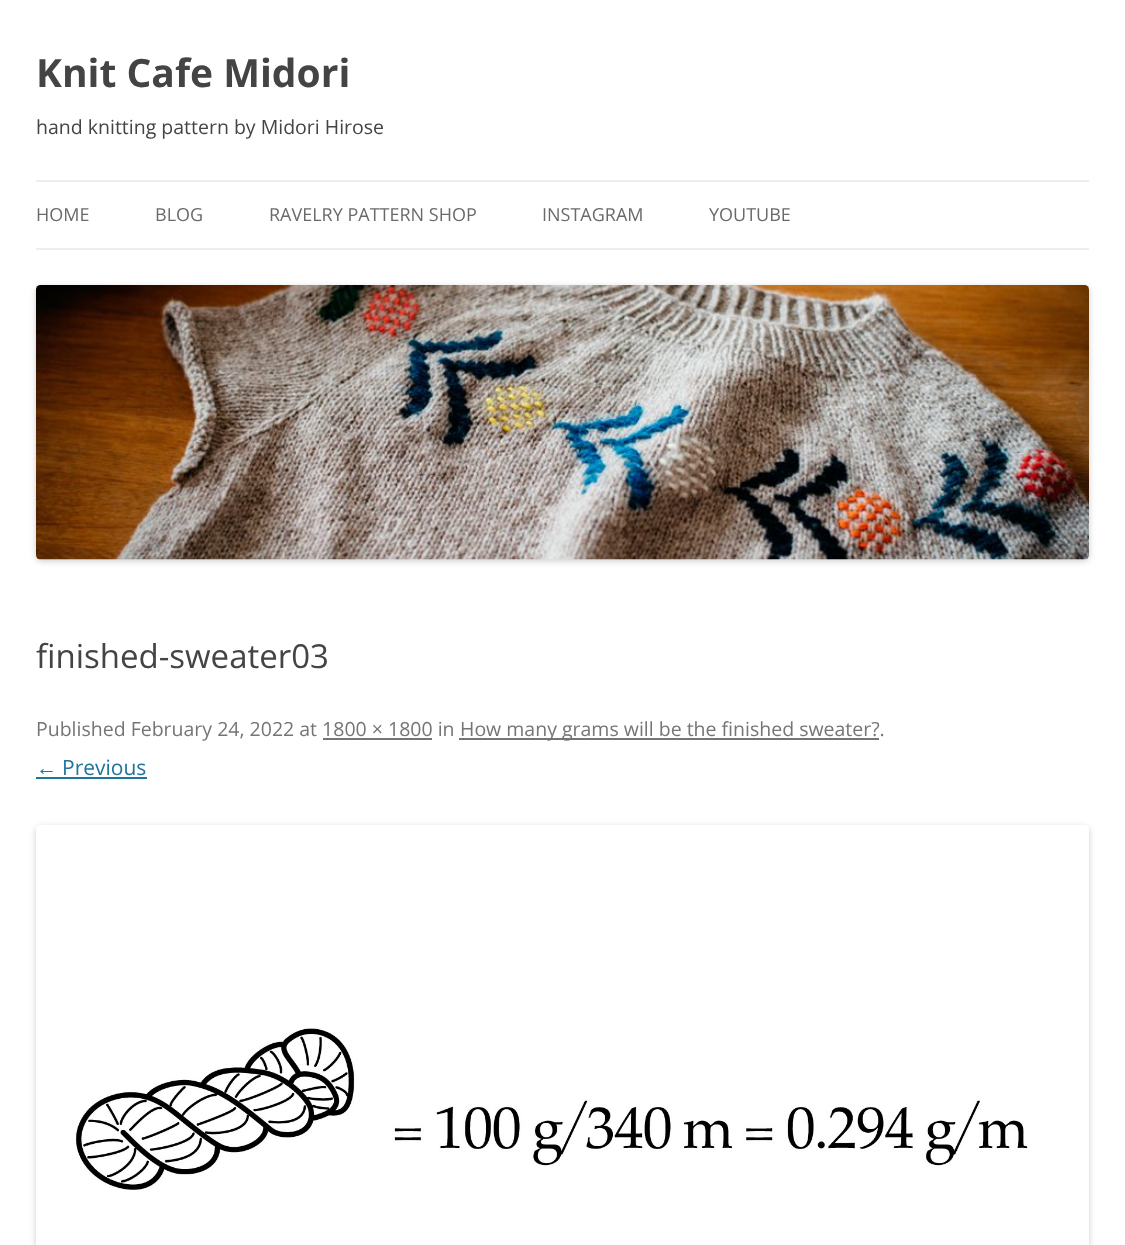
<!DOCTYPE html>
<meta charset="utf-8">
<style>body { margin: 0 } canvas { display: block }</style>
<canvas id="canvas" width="1125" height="1245"></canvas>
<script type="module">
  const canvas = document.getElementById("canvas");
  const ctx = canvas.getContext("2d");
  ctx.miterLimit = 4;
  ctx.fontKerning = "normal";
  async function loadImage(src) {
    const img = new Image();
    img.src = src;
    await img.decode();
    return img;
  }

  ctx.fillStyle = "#ffffff";
  ctx.fillRect(0, 0, 1125, 1245);
  ctx.font = "bold 39px Open Sans";
  ctx.fillStyle = "#444444";
  ctx.fillText("Knit Cafe Midori", 36, 87);
  ctx.font = "19.5px Open Sans";
  ctx.fillText("hand knitting pattern by Midori Hirose", 36, 134);
  ctx.fillStyle = "#ededed";
  ctx.fillRect(36, 180, 1053, 2);
  ctx.fillRect(36, 248, 1053, 2);
  ctx.font = "18px Open Sans";
  ctx.fillStyle = "#6a6a6a";
  ctx.fillText("HOME", 36, 221);
  ctx.fillText("BLOG", 155, 221);
  ctx.fillText("RAVELRY PATTERN SHOP", 269, 221);
  ctx.fillText("INSTAGRAM", 542, 221);
  ctx.fillText("YOUTUBE", 709, 221);
  ctx.fillStyle = "rgba(0, 0, 0, 0.2)";
  ctx.filter = "blur(3px)";
  ctx.beginPath();
  ctx.roundRect(36, 287, 1053, 274, 5);
  ctx.fill();
  ctx.filter = "none";
  ctx.drawImage(await loadImage("img1.png"), 36, 285, 1053, 275);
  ctx.font = "33px Open Sans";
  ctx.fillStyle = "#444444";
  ctx.fillText("finished-sweater03", 36, 668);
  ctx.font = "19.5px Open Sans";
  ctx.fillStyle = "#757575";
  ctx.fillText("Published February 24, 2022 at 1800 × 1800 in", 36, 736);
  ctx.fillRect(459, 738, 420, 2);
  ctx.fillText("How many grams will be the finished sweater?.", 460, 736);
  ctx.fillRect(323, 738, 109, 2);
  ctx.font = "21px Liberation Sans";
  ctx.fillStyle = "#21759b";
  ctx.fillText("←", 36, 775);
  ctx.fillRect(36, 777, 111, 2);
  ctx.font = "21px Open Sans";
  ctx.fillText("Previous", 62, 775);
  ctx.save();
  ctx.beginPath();
  ctx.moveTo(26, 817);
  ctx.lineTo(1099, 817);
  ctx.lineTo(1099, 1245);
  ctx.lineTo(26, 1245);
  ctx.closePath();
  ctx.moveTo(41, 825);
  ctx.lineTo(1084, 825);
  ctx.bezierCurveTo(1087, 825, 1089, 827, 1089, 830);
  ctx.lineTo(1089, 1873);
  ctx.bezierCurveTo(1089, 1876, 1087, 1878, 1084, 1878);
  ctx.lineTo(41, 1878);
  ctx.bezierCurveTo(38, 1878, 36, 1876, 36, 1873);
  ctx.lineTo(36, 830);
  ctx.bezierCurveTo(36, 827, 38, 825, 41, 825);
  ctx.closePath();
  ctx.clip("evenodd");
  ctx.fillStyle = "rgba(0, 0, 0, 0.2)";
  ctx.filter = "blur(3px)";
  ctx.beginPath();
  ctx.roundRect(36, 827, 1053, 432, 5);
  ctx.fill();
  ctx.filter = "none";
  ctx.restore();
  ctx.drawImage(await loadImage("img2.png"), 75, 1027, 953, 163);
</script>
